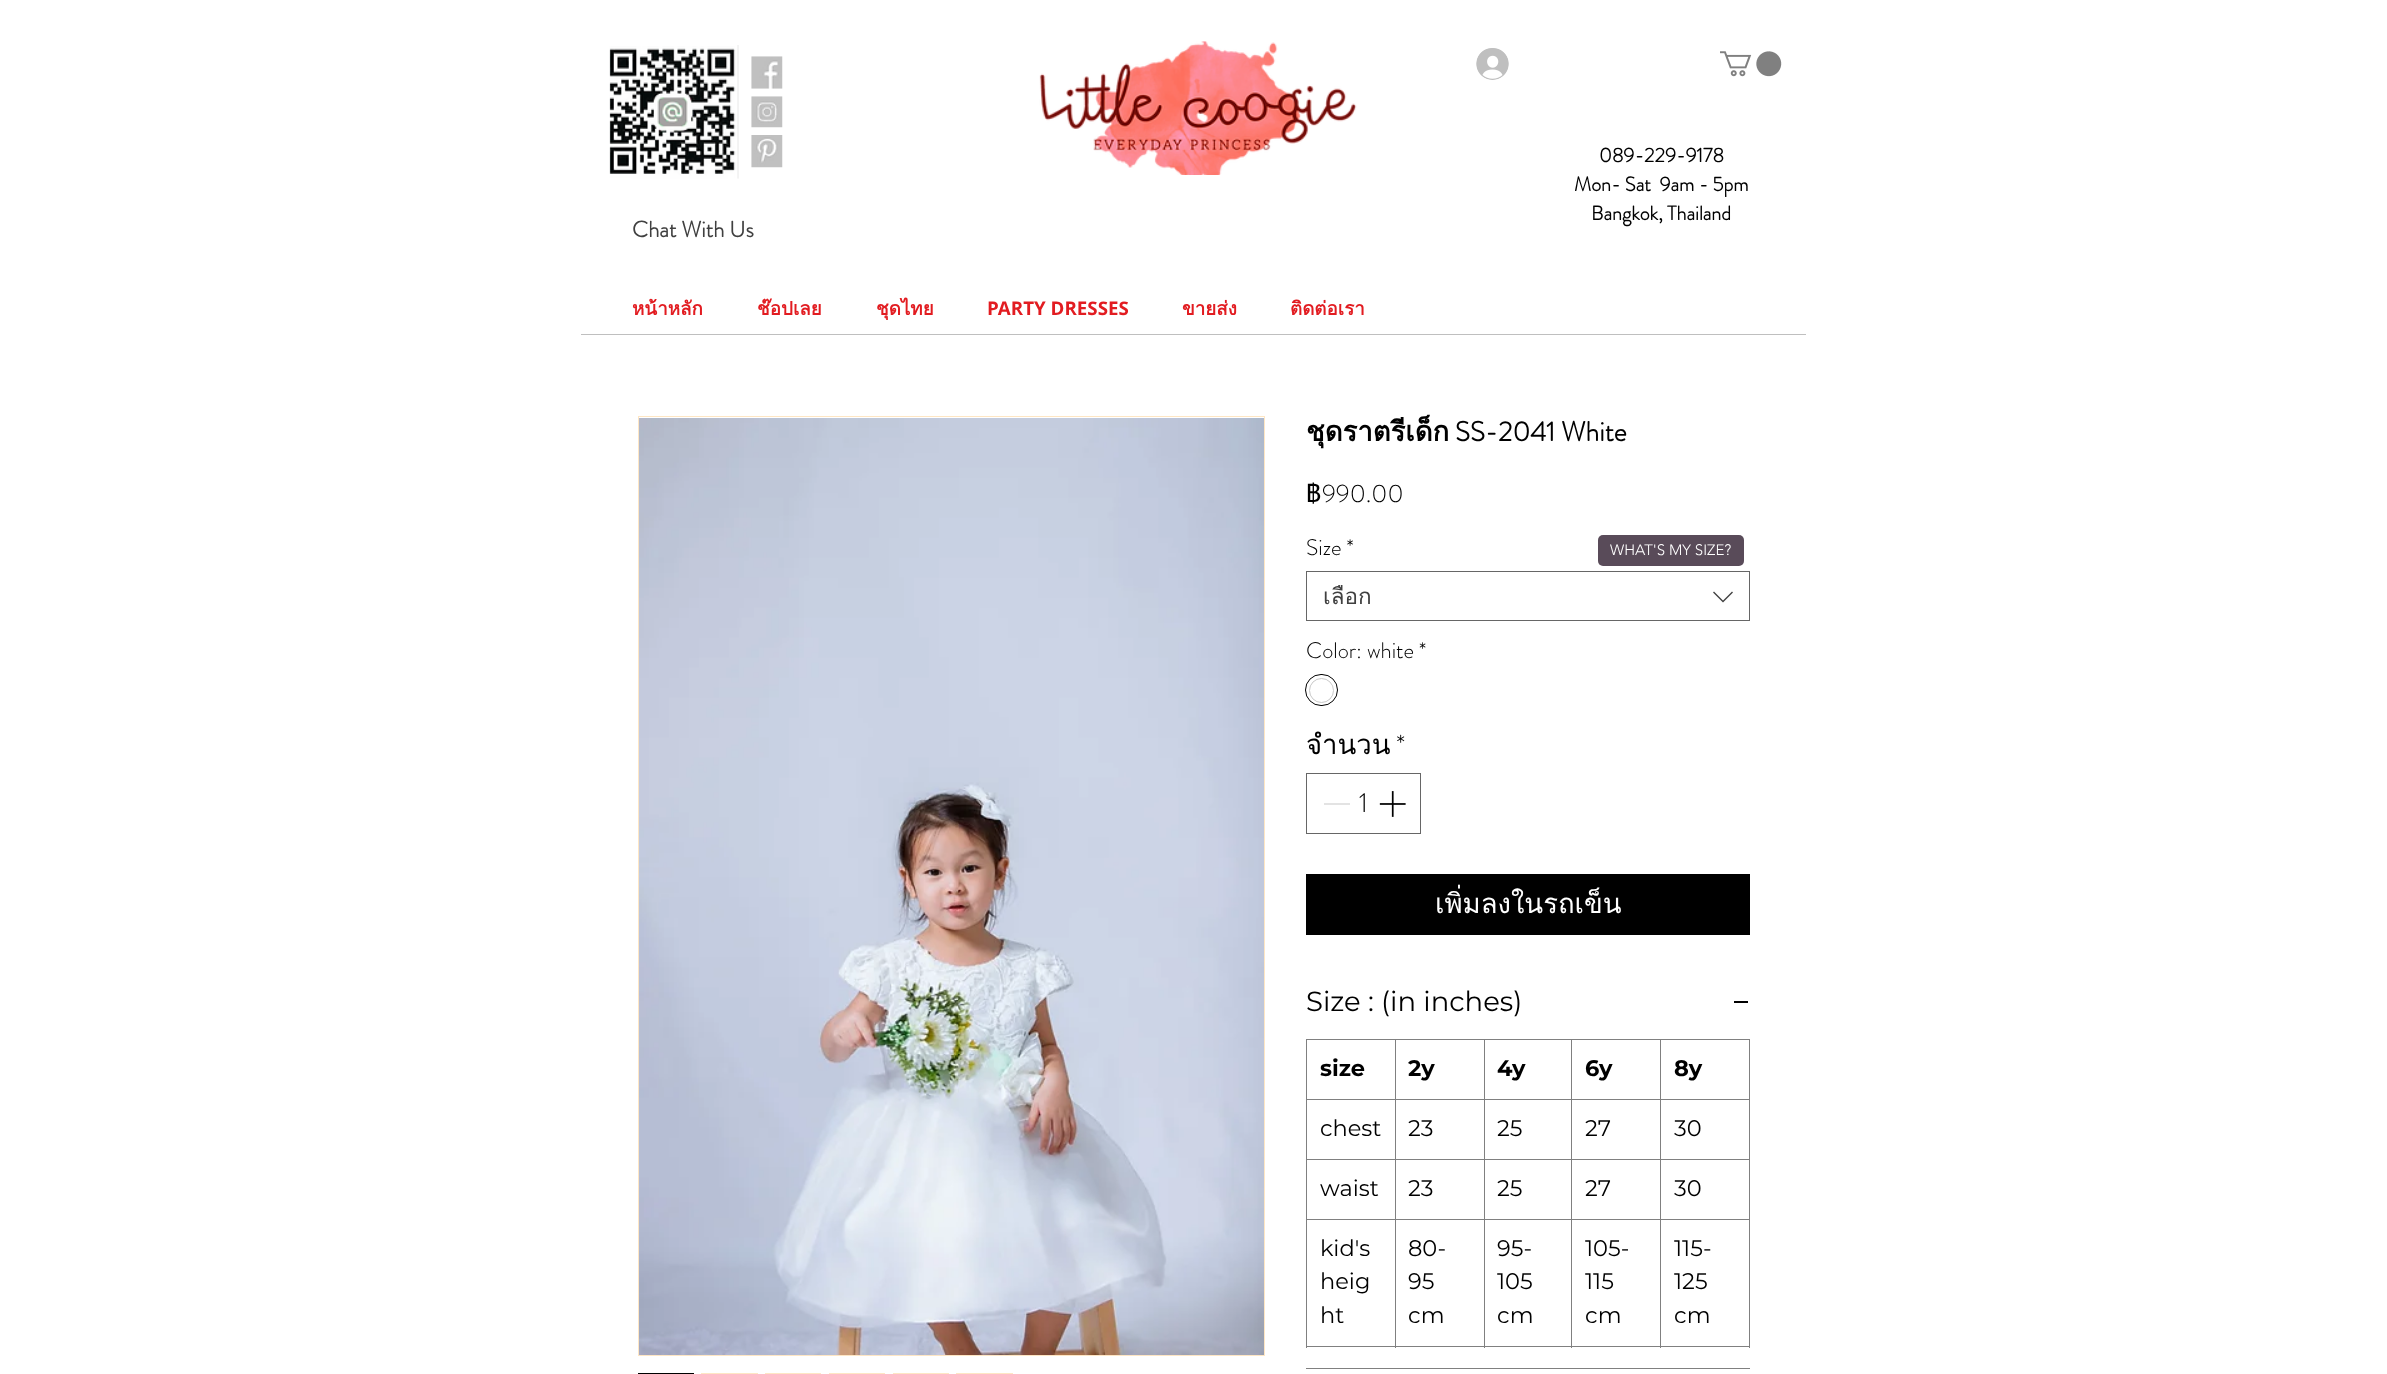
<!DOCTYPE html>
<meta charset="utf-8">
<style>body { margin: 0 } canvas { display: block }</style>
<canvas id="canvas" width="2387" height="1374"></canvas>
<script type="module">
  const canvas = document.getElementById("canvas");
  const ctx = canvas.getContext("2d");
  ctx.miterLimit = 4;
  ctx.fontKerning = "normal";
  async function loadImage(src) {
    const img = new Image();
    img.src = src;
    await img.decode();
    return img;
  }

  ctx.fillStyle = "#ffffff";
  ctx.fillRect(0, 0, 2387, 1374);
  ctx.drawImage(await loadImage("img1.png"), 609, 45, 130, 134);
  ctx.drawImage(await loadImage("img2.png"), 751, 56, 32, 33);
  ctx.drawImage(await loadImage("img3.png"), 751, 96, 32, 32);
  ctx.drawImage(await loadImage("img4.png"), 751, 135, 32, 33);
  ctx.drawImage(await loadImage("img5.png"), 1039, 41, 318, 134);
  ctx.drawImage(await loadImage("img6.png"), 1476, 48, 33, 32);
  ctx.drawImage(await loadImage("img7.png"), 1720, 51, 62, 26);
  ctx.font = "bold 20px 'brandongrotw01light'";
  ctx.fillStyle = "#000000";
  ctx.fillText("089-229-9178", 1599, 162);
  ctx.fillText("Mon- Sat  9am - 5pm", 1574, 191);
  ctx.fillText("Bangkok, Thailand", 1591, 220);
  ctx.font = "bold 22.5px 'brandongrotw01light'";
  ctx.fillStyle = "#404040";
  ctx.fillText("Chat With Us", 632, 237);
  ctx.font = "bold 18.75px Loma";
  ctx.fillStyle = "#e21c21";
  ctx.fillText("หน้าหลัก", 632, 315);
  ctx.fillText("ช๊อปเลย", 757, 315);
  ctx.fillText("ชุดไทย", 876, 315);
  ctx.font = "bold 18.75px Open Sans";
  ctx.fillText("PARTY DRESSES", 987, 315);
  ctx.font = "bold 18.75px Loma";
  ctx.fillText("ขายส่ง", 1182, 315);
  ctx.fillText("ติดต่อเรา", 1290, 315);
  ctx.fillStyle = "#bfbfbf";
  ctx.fillRect(581, 334, 1225, 1);
  ctx.strokeStyle = "#fee6c4";
  ctx.strokeRect(638.5, 416.5, 626, 939);
  ctx.drawImage(await loadImage("img8.png"), 639, 418, 625, 937);
  ctx.strokeStyle = "#000000";
  ctx.strokeRect(638.5, 1373.5, 55, 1);
  ctx.fillStyle = "#fee6c4";
  ctx.fillRect(701, 1373, 57, 1);
  ctx.fillRect(765, 1373, 56, 1);
  ctx.fillRect(829, 1373, 56, 1);
  ctx.fillRect(893, 1373, 56, 1);
  ctx.fillRect(956, 1373, 57, 1);
  ctx.font = "bold 27.5px Loma";
  ctx.fillStyle = "#000000";
  ctx.fillText("ชุดราตรีเด็ก", 1306, 441);
  ctx.font = "bold 27.5px 'brandongrotw01light'";
  ctx.fillText("SS-2041 White", 1455, 441);
  ctx.font = "25px Loma";
  ctx.fillText("฿", 1306, 502);
  ctx.font = "300 25px 'brandongrotw01light'";
  ctx.fillText("990.00", 1322, 502);
  ctx.font = "300 22.5px 'brandongrotw01light'";
  ctx.fillText("Size *", 1306, 555);
  ctx.strokeStyle = "#666666";
  ctx.strokeRect(1306.5, 571.5, 443, 49);
  ctx.save();
  ctx.beginPath();
  ctx.rect(1323, 583, 378, 27);
  ctx.clip();
  ctx.font = "22.5px Loma";
  ctx.fillStyle = "#404040";
  ctx.fillText("เลือก", 1323, 604);
  ctx.restore();
  ctx.fillStyle = "#444444";
  ctx.beginPath();
  ctx.moveTo(1732, 591.5);
  ctx.lineTo(1733, 592.5);
  ctx.lineTo(1723, 602.5);
  ctx.lineTo(1713, 592.5);
  ctx.lineTo(1714, 591.5);
  ctx.lineTo(1723, 600.5);
  ctx.closePath();
  ctx.fill("evenodd");
  ctx.fillStyle = "#000000";
  ctx.fillText("Color: white *", 1306, 658);
  ctx.beginPath();
  ctx.roundRect(1305.5, 674.5, 32, 31, 15.5);
  ctx.strokeStyle = "#000000";
  ctx.stroke();
  ctx.beginPath();
  ctx.arc(1321.5, 690.5, 12, 0, Math.PI * 2);
  ctx.strokeStyle = "#c9c9c9";
  ctx.stroke();
  ctx.font = "27.5px Loma";
  ctx.fillText("จำนวน", 1306, 754);
  ctx.font = "300 27.5px 'brandongrotw01light'";
  ctx.fillText("*", 1396, 754);
  ctx.strokeStyle = "#666666";
  ctx.strokeRect(1306.5, 773.5, 114, 60);
  ctx.fillStyle = "#e3e3e3";
  ctx.fillRect(1324, 803, 26, 2);
  ctx.fillStyle = "#000000";
  ctx.fillText("1", 1359, 812);
  ctx.drawImage(await loadImage("img9.png"), 1379, 791, 27, 26);
  ctx.fillRect(1306, 874, 444, 61);
  ctx.font = "27.5px Loma";
  ctx.fillStyle = "#ffffff";
  ctx.fillText("เพิ่มลงในรถเข็น", 1435, 913);
  ctx.fillStyle = "#808080";
  ctx.fillRect(1306, 1368, 444, 1);
  ctx.font = "27.5px Montserrat";
  ctx.fillStyle = "#000000";
  ctx.fillText("Size : (in inches)", 1306, 1011);
  ctx.fillRect(1734, 1001, 14, 2);
  ctx.fillStyle = "#808080";
  ctx.fillRect(1660, 1039, 90, 1);
  ctx.fillRect(1660, 1099, 90, 1);
  ctx.fillRect(1660, 1159, 90, 1);
  ctx.fillRect(1660, 1219, 90, 1);
  ctx.fillRect(1749, 1219, 1, 129);
  ctx.fillRect(1660, 1346, 90, 1);
  ctx.fillRect(1660, 1219, 1, 129);
  ctx.fillRect(1571, 1219, 90, 1);
  ctx.fillRect(1660, 1159, 1, 61);
  ctx.fillRect(1571, 1159, 90, 1);
  ctx.fillRect(1660, 1099, 1, 61);
  ctx.fillRect(1571, 1099, 90, 1);
  ctx.fillRect(1660, 1039, 1, 61);
  ctx.fillRect(1571, 1039, 90, 1);
  ctx.fillRect(1571, 1346, 90, 1);
  ctx.fillRect(1571, 1219, 1, 129);
  ctx.fillRect(1484, 1219, 89, 1);
  ctx.fillRect(1571, 1159, 1, 61);
  ctx.fillRect(1484, 1159, 89, 1);
  ctx.fillRect(1571, 1099, 1, 61);
  ctx.fillRect(1484, 1099, 89, 1);
  ctx.fillRect(1571, 1039, 1, 61);
  ctx.fillRect(1484, 1039, 89, 1);
  ctx.fillRect(1484, 1346, 89, 1);
  ctx.fillRect(1484, 1219, 1, 129);
  ctx.fillRect(1395, 1219, 90, 1);
  ctx.fillRect(1484, 1159, 1, 61);
  ctx.fillRect(1395, 1159, 90, 1);
  ctx.fillRect(1484, 1099, 1, 61);
  ctx.fillRect(1395, 1099, 90, 1);
  ctx.fillRect(1484, 1039, 1, 61);
  ctx.fillRect(1395, 1039, 90, 1);
  ctx.fillRect(1395, 1346, 90, 1);
  ctx.fillRect(1395, 1219, 1, 129);
  ctx.fillRect(1306, 1219, 90, 1);
  ctx.fillRect(1395, 1159, 1, 61);
  ctx.fillRect(1306, 1159, 90, 1);
  ctx.fillRect(1395, 1099, 1, 61);
  ctx.fillRect(1306, 1099, 90, 1);
  ctx.fillRect(1395, 1039, 1, 61);
  ctx.fillRect(1306, 1039, 90, 1);
  ctx.fillRect(1306, 1346, 90, 1);
  ctx.fillRect(1306, 1219, 1, 129);
  ctx.fillRect(1306, 1159, 1, 61);
  ctx.fillRect(1306, 1099, 1, 61);
  ctx.fillRect(1306, 1039, 1, 61);
  ctx.font = "bold 22.5px Montserrat";
  ctx.fillStyle = "#000000";
  ctx.fillText("size", 1320, 1076);
  ctx.fillText("2y", 1408, 1076);
  ctx.fillText("4y", 1497, 1076);
  ctx.fillText("6y", 1585, 1076);
  ctx.fillStyle = "#808080";
  ctx.fillRect(1749, 1159, 1, 61);
  ctx.fillRect(1749, 1099, 1, 61);
  ctx.fillRect(1749, 1039, 1, 61);
  ctx.fillStyle = "#000000";
  ctx.fillText("8y", 1674, 1076);
  ctx.font = "22.5px Montserrat";
  ctx.fillText("chest", 1320, 1136);
  ctx.fillText("23", 1408, 1136);
  ctx.fillText("25", 1497, 1136);
  ctx.fillText("27", 1585, 1136);
  ctx.fillText("30", 1674, 1136);
  ctx.fillText("waist", 1320, 1196);
  ctx.fillText("23", 1408, 1196);
  ctx.fillText("25", 1497, 1196);
  ctx.fillText("27", 1585, 1196);
  ctx.fillText("30", 1674, 1196);
  ctx.fillText("kid's", 1320, 1256);
  ctx.fillText("heig", 1320, 1289);
  ctx.fillText("ht", 1320, 1323);
  ctx.fillText("80-", 1408, 1256);
  ctx.fillText("95", 1408, 1289);
  ctx.fillText("cm", 1408, 1323);
  ctx.fillText("95-", 1497, 1256);
  ctx.fillText("105", 1497, 1289);
  ctx.fillText("cm", 1497, 1323);
  ctx.fillText("105-", 1585, 1256);
  ctx.fillText("115", 1585, 1289);
  ctx.fillText("cm", 1585, 1323);
  ctx.fillText("115-", 1674, 1256);
  ctx.fillText("125", 1674, 1289);
  ctx.fillText("cm", 1674, 1323);
  ctx.fillStyle = "#594b59";
  ctx.beginPath();
  ctx.roundRect(1598, 535, 146, 31, 5);
  ctx.fill();
  ctx.font = "300 15px 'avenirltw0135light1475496'";
  ctx.fillStyle = "#ffffff";
  ctx.fillText("WHAT'S MY SIZE?", 1610, 555);
</script>
